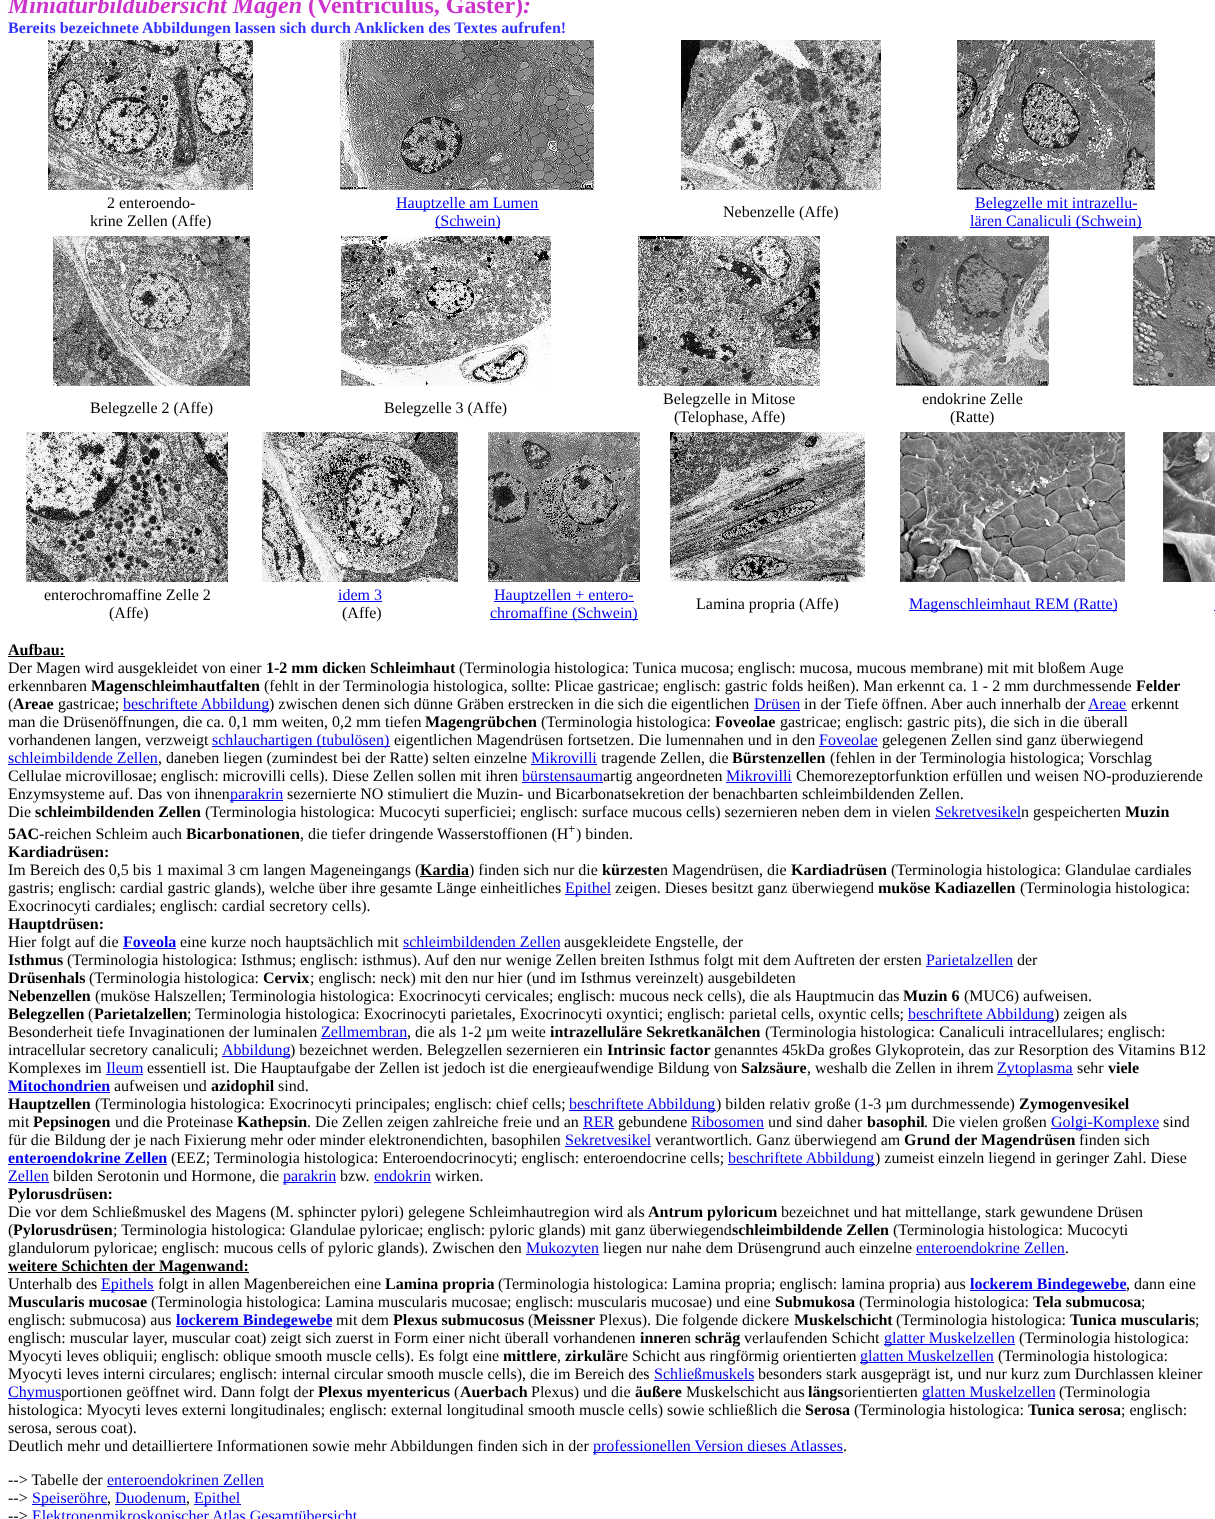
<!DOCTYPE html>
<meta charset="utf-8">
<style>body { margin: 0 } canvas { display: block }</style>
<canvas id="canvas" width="1215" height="1519"></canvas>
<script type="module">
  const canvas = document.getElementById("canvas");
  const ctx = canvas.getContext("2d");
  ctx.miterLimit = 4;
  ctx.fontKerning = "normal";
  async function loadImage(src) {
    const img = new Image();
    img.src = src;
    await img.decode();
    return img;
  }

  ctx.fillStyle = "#ffffff";
  ctx.fillRect(0, 0, 1215, 1519);
  ctx.font = "italic bold 24px Liberation Serif";
  ctx.fillStyle = "#cc33cc";
  ctx.fillText("Miniaturbildübersicht Magen", 8, 13);
  ctx.font = "bold 24px Liberation Serif";
  ctx.fillText("(Ventriculus, Gaster)", 308, 13);
  ctx.font = "italic bold 24px Liberation Serif";
  ctx.fillText(":", 523, 13);
  ctx.font = "bold 16px Liberation Serif";
  ctx.fillStyle = "#3333ff";
  ctx.fillText("Bereits bezeichnete Abbildungen lassen sich durch Anklicken des Textes aufrufen!", 8, 33);
  ctx.drawImage(await loadImage("img1.png"), 48, 40, 205, 150);
  ctx.drawImage(await loadImage("img2.png"), 340, 40, 254, 150);
  ctx.drawImage(await loadImage("img3.png"), 681, 40, 200, 150);
  ctx.drawImage(await loadImage("img4.png"), 957, 40, 198, 150);
  ctx.font = "16px Liberation Serif";
  ctx.fillStyle = "#000000";
  ctx.fillText("2 enteroendo-", 107, 208);
  ctx.fillText("krine Zellen (Affe)", 90, 226);
  ctx.fillStyle = "#0000ee";
  ctx.fillRect(396, 209, 143, 1);
  ctx.fillText("Hauptzelle am Lumen", 396, 208);
  ctx.fillRect(435, 227, 65, 1);
  ctx.fillText("(Schwein)", 435, 226);
  ctx.fillStyle = "#000000";
  ctx.fillText("Nebenzelle (Affe)", 723, 217);
  ctx.fillStyle = "#0000ee";
  ctx.fillRect(975, 209, 162, 1);
  ctx.fillText("Belegzelle mit intrazellu-", 975, 208);
  ctx.fillRect(970, 227, 172, 1);
  ctx.fillText("lären Canaliculi (Schwein)", 970, 226);
  ctx.drawImage(await loadImage("img5.png"), 53, 236, 197, 150);
  ctx.drawImage(await loadImage("img6.png"), 341, 236, 210, 150);
  ctx.drawImage(await loadImage("img7.png"), 638, 236, 182, 150);
  ctx.drawImage(await loadImage("img8.png"), 896, 236, 153, 150);
  ctx.drawImage(await loadImage("img9.png"), 1133, 236, 82, 150);
  ctx.fillStyle = "#000000";
  ctx.fillText("Belegzelle 2 (Affe)", 90, 413);
  ctx.fillText("Belegzelle 3 (Affe)", 384, 413);
  ctx.fillText("Belegzelle in Mitose", 663, 404);
  ctx.fillText("(Telophase, Affe)", 674, 422);
  ctx.fillText("endokrine Zelle", 922, 404);
  ctx.fillText("(Ratte)", 950, 422);
  ctx.drawImage(await loadImage("img10.png"), 26, 432, 202, 150);
  ctx.drawImage(await loadImage("img11.png"), 262, 432, 196, 150);
  ctx.drawImage(await loadImage("img12.png"), 488, 432, 152, 150);
  ctx.drawImage(await loadImage("img13.png"), 670, 432, 195, 150);
  ctx.drawImage(await loadImage("img14.png"), 900, 432, 225, 150);
  ctx.drawImage(await loadImage("img15.png"), 1163, 432, 52, 150);
  ctx.fillText("enterochromaffine Zelle 2", 44, 600);
  ctx.fillText("(Affe)", 109, 618);
  ctx.fillStyle = "#0000ee";
  ctx.fillText("idem 3", 338, 600);
  ctx.fillRect(338, 601, 44, 1);
  ctx.fillStyle = "#000000";
  ctx.fillText("(Affe)", 342, 618);
  ctx.fillStyle = "#0000ee";
  ctx.fillRect(494, 601, 140, 1);
  ctx.fillText("Hauptzellen + entero-", 494, 600);
  ctx.fillRect(490, 619, 148, 1);
  ctx.fillText("chromaffine (Schwein)", 490, 618);
  ctx.fillStyle = "#000000";
  ctx.fillText("Lamina propria (Affe)", 696, 609);
  ctx.fillStyle = "#0000ee";
  ctx.fillRect(909, 610, 208, 1);
  ctx.fillText("Magenschleimhaut REM (Ratte)", 909, 609);
  ctx.fillRect(1214, 610, 1, 1);
  ctx.font = "bold 16px Liberation Serif";
  ctx.fillStyle = "#000000";
  ctx.fillText("Aufbau:", 8, 655);
  ctx.fillRect(8, 656, 57, 1);
  ctx.font = "16px Liberation Serif";
  ctx.fillText("Der Magen wird ausgekleidet von einer", 8, 673);
  ctx.font = "bold 16px Liberation Serif";
  ctx.fillText("1-2 mm dicke", 266, 673);
  ctx.font = "16px Liberation Serif";
  ctx.fillText("n", 358, 673);
  ctx.font = "bold 16px Liberation Serif";
  ctx.fillText("Schleimhaut", 370, 673);
  ctx.font = "16px Liberation Serif";
  ctx.fillText("(Terminologia histologica: Tunica mucosa; englisch: mucosa, mucous membrane) mit mit bloßem Auge", 459, 673);
  ctx.fillText("erkennbaren", 8, 691);
  ctx.font = "bold 16px Liberation Serif";
  ctx.fillText("Magenschleimhautfalten", 91, 691);
  ctx.font = "16px Liberation Serif";
  ctx.fillText("(fehlt in der Terminologia histologica, sollte: Plicae gastricae; englisch: gastric folds heißen). Man erkennt ca. 1 - 2 mm durchmessende", 264, 691);
  ctx.font = "bold 16px Liberation Serif";
  ctx.fillText("Felder", 1136, 691);
  ctx.font = "16px Liberation Serif";
  ctx.fillText("(", 8, 709);
  ctx.font = "bold 16px Liberation Serif";
  ctx.fillText("Areae", 13, 709);
  ctx.font = "16px Liberation Serif";
  ctx.fillText("gastricae;", 58, 709);
  ctx.fillStyle = "#0000ee";
  ctx.fillRect(123, 710, 146, 1);
  ctx.fillText("beschriftete Abbildung", 123, 709);
  ctx.fillStyle = "#000000";
  ctx.fillText(") zwischen denen sich dünne Gräben erstrecken in die sich die eigentlichen", 269, 709);
  ctx.fillStyle = "#0000ee";
  ctx.fillText("Drüsen", 754, 709);
  ctx.fillRect(754, 710, 46, 1);
  ctx.fillStyle = "#000000";
  ctx.fillText("in der Tiefe öffnen. Aber auch innerhalb der", 804, 709);
  ctx.fillStyle = "#0000ee";
  ctx.fillText("Areae", 1088, 709);
  ctx.fillRect(1088, 710, 39, 1);
  ctx.fillStyle = "#000000";
  ctx.fillText("erkennt", 1131, 709);
  ctx.fillText("man die Drüsenöffnungen, die ca. 0,1 mm weiten, 0,2 mm tiefen", 8, 727);
  ctx.font = "bold 16px Liberation Serif";
  ctx.fillText("Magengrübchen", 425, 727);
  ctx.font = "16px Liberation Serif";
  ctx.fillText("(Terminologia histologica:", 541, 727);
  ctx.font = "bold 16px Liberation Serif";
  ctx.fillText("Foveolae", 715, 727);
  ctx.font = "16px Liberation Serif";
  ctx.fillText("gastricae; englisch: gastric pits), die sich in die überall", 780, 727);
  ctx.fillText("vorhandenen langen, verzweigt", 8, 745);
  ctx.fillStyle = "#0000ee";
  ctx.fillRect(212, 746, 178, 1);
  ctx.fillText("schlauchartigen (tubulösen)", 212, 745);
  ctx.fillStyle = "#000000";
  ctx.fillText("eigentlichen Magendrüsen fortsetzen. Die lumennahen und in den", 394, 745);
  ctx.fillStyle = "#0000ee";
  ctx.fillText("Foveolae", 819, 745);
  ctx.fillRect(819, 746, 59, 1);
  ctx.fillStyle = "#000000";
  ctx.fillText("gelegenen Zellen sind ganz überwiegend", 882, 745);
  ctx.fillStyle = "#0000ee";
  ctx.fillText("schleimbildende Zellen", 8, 763);
  ctx.fillRect(8, 764, 150, 1);
  ctx.fillStyle = "#000000";
  ctx.fillText(", daneben liegen (zumindest bei der Ratte) selten einzelne", 158, 763);
  ctx.fillStyle = "#0000ee";
  ctx.fillText("Mikrovilli", 531, 763);
  ctx.fillRect(531, 764, 66, 1);
  ctx.fillStyle = "#000000";
  ctx.fillText("tragende Zellen, die", 601, 763);
  ctx.font = "bold 16px Liberation Serif";
  ctx.fillText("Bürstenzellen", 732, 763);
  ctx.font = "16px Liberation Serif";
  ctx.fillText("(fehlen in der Terminologia histologica; Vorschlag", 830, 763);
  ctx.fillText("Cellulae microvillosae; englisch: microvilli cells). Diese Zellen sollen mit ihren", 8, 781);
  ctx.fillStyle = "#0000ee";
  ctx.fillText("bürstensaum", 522, 781);
  ctx.fillRect(522, 782, 81, 1);
  ctx.fillStyle = "#000000";
  ctx.fillText("artig angeordneten", 603, 781);
  ctx.fillStyle = "#0000ee";
  ctx.fillText("Mikrovilli", 726, 781);
  ctx.fillRect(726, 782, 66, 1);
  ctx.fillStyle = "#000000";
  ctx.fillText("Chemorezeptorfunktion erfüllen und weisen NO-produzierende", 796, 781);
  ctx.fillText("Enzymsysteme auf. Das von ihnen", 8, 799);
  ctx.fillStyle = "#0000ee";
  ctx.fillRect(230, 800, 53, 1);
  ctx.fillText("parakrin", 230, 799);
  ctx.fillStyle = "#000000";
  ctx.fillText("sezernierte NO stimuliert die Muzin- und Bicarbonatsekretion der benachbarten schleimbildenden Zellen.", 287, 799);
  ctx.fillText("Die", 8, 817);
  ctx.font = "bold 16px Liberation Serif";
  ctx.fillText("schleimbildenden Zellen", 35, 817);
  ctx.font = "16px Liberation Serif";
  ctx.fillText("(Terminologia histologica: Mucocyti superficiei; englisch: surface mucous cells) sezernieren neben dem in vielen", 205, 817);
  ctx.fillStyle = "#0000ee";
  ctx.fillText("Sekretvesikel", 935, 817);
  ctx.fillRect(935, 818, 86, 1);
  ctx.fillStyle = "#000000";
  ctx.fillText("n gespeicherten", 1021, 817);
  ctx.font = "bold 16px Liberation Serif";
  ctx.fillText("Muzin", 1125, 817);
  ctx.fillText("5AC", 8, 839);
  ctx.font = "16px Liberation Serif";
  ctx.fillText("-reichen Schleim auch", 39, 839);
  ctx.font = "bold 16px Liberation Serif";
  ctx.fillText("Bicarbonationen", 186, 839);
  ctx.font = "16px Liberation Serif";
  ctx.fillText(", die tiefer dringende Wasserstoffionen (H", 300, 839);
  ctx.font = "13px Liberation Serif";
  ctx.fillText("+", 568, 833);
  ctx.font = "16px Liberation Serif";
  ctx.fillText(") binden.", 576, 839);
  ctx.font = "bold 16px Liberation Serif";
  ctx.fillText("Kardiadrüsen:", 8, 857);
  ctx.font = "16px Liberation Serif";
  ctx.fillText("Im Bereich des 0,5 bis 1 maximal 3 cm langen Mageneingangs (", 8, 875);
  ctx.font = "bold 16px Liberation Serif";
  ctx.fillText("Kardia", 420, 875);
  ctx.fillRect(420, 876, 49, 1);
  ctx.font = "16px Liberation Serif";
  ctx.fillText(") finden sich nur die", 469, 875);
  ctx.font = "bold 16px Liberation Serif";
  ctx.fillText("kürzeste", 602, 875);
  ctx.font = "16px Liberation Serif";
  ctx.fillText("n Magendrüsen, die", 660, 875);
  ctx.font = "bold 16px Liberation Serif";
  ctx.fillText("Kardiadrüsen", 791, 875);
  ctx.font = "16px Liberation Serif";
  ctx.fillText("(Terminologia histologica: Glandulae cardiales", 891, 875);
  ctx.fillText("gastris; englisch: cardial gastric glands), welche über ihre gesamte Länge einheitliches", 8, 893);
  ctx.fillStyle = "#0000ee";
  ctx.fillRect(565, 894, 46, 1);
  ctx.fillText("Epithel", 565, 893);
  ctx.fillStyle = "#000000";
  ctx.fillText("zeigen. Dieses besitzt ganz überwiegend", 615, 893);
  ctx.font = "bold 16px Liberation Serif";
  ctx.fillText("muköse Kadiazellen", 878, 893);
  ctx.font = "16px Liberation Serif";
  ctx.fillText("(Terminologia histologica:", 1020, 893);
  ctx.fillText("Exocrinocyti cardiales; englisch: cardial secretory cells).", 8, 911);
  ctx.font = "bold 16px Liberation Serif";
  ctx.fillText("Hauptdrüsen:", 8, 929);
  ctx.font = "16px Liberation Serif";
  ctx.fillText("Hier folgt auf die", 8, 947);
  ctx.font = "bold 16px Liberation Serif";
  ctx.fillStyle = "#0000ee";
  ctx.fillText("Foveola", 123, 947);
  ctx.fillRect(123, 948, 53, 1);
  ctx.font = "16px Liberation Serif";
  ctx.fillStyle = "#000000";
  ctx.fillText("eine kurze noch hauptsächlich mit", 180, 947);
  ctx.fillStyle = "#0000ee";
  ctx.fillText("schleimbildenden Zellen", 403, 947);
  ctx.fillRect(403, 948, 157, 1);
  ctx.fillStyle = "#000000";
  ctx.fillText("ausgekleidete Engstelle, der", 564, 947);
  ctx.font = "bold 16px Liberation Serif";
  ctx.fillText("Isthmus", 8, 965);
  ctx.font = "16px Liberation Serif";
  ctx.fillText("(Terminologia histologica: Isthmus; englisch: isthmus). Auf den nur wenige Zellen breiten Isthmus folgt mit dem Auftreten der ersten", 67, 965);
  ctx.fillStyle = "#0000ee";
  ctx.fillText("Parietalzellen", 926, 965);
  ctx.fillRect(926, 966, 87, 1);
  ctx.fillStyle = "#000000";
  ctx.fillText("der", 1017, 965);
  ctx.font = "bold 16px Liberation Serif";
  ctx.fillText("Drüsenhals", 8, 983);
  ctx.font = "16px Liberation Serif";
  ctx.fillText("(Terminologia histologica:", 89, 983);
  ctx.font = "bold 16px Liberation Serif";
  ctx.fillText("Cervix", 263, 983);
  ctx.font = "16px Liberation Serif";
  ctx.fillText("; englisch: neck) mit den nur hier (und im Isthmus vereinzelt) ausgebildeten", 310, 983);
  ctx.font = "bold 16px Liberation Serif";
  ctx.fillText("Nebenzellen", 8, 1001);
  ctx.font = "16px Liberation Serif";
  ctx.fillText("(muköse Halszellen; Terminologia histologica: Exocrinocyti cervicales; englisch: mucous neck cells), die als Hauptmucin das", 95, 1001);
  ctx.font = "bold 16px Liberation Serif";
  ctx.fillText("Muzin 6", 903, 1001);
  ctx.font = "16px Liberation Serif";
  ctx.fillText("(MUC6) aufweisen.", 964, 1001);
  ctx.font = "bold 16px Liberation Serif";
  ctx.fillText("Belegzellen", 8, 1019);
  ctx.font = "16px Liberation Serif";
  ctx.fillText("(", 88, 1019);
  ctx.font = "bold 16px Liberation Serif";
  ctx.fillText("Parietalzellen", 94, 1019);
  ctx.font = "16px Liberation Serif";
  ctx.fillText("; Terminologia histologica: Exocrinocyti parietales, Exocrinocyti oxyntici; englisch: parietal cells, oxyntic cells;", 187, 1019);
  ctx.fillStyle = "#0000ee";
  ctx.fillRect(908, 1020, 146, 1);
  ctx.fillText("beschriftete Abbildung", 908, 1019);
  ctx.fillStyle = "#000000";
  ctx.fillText(") zeigen als", 1054, 1019);
  ctx.fillText("Besonderheit tiefe Invaginationen der luminalen", 8, 1037);
  ctx.fillStyle = "#0000ee";
  ctx.fillText("Zellmembran", 321, 1037);
  ctx.fillRect(321, 1038, 86, 1);
  ctx.fillStyle = "#000000";
  ctx.fillText(", die als 1-2 µm weite", 407, 1037);
  ctx.font = "bold 16px Liberation Serif";
  ctx.fillText("intrazelluläre Sekretkanälchen", 550, 1037);
  ctx.font = "16px Liberation Serif";
  ctx.fillText("(Terminologia histologica: Canaliculi intracellulares; englisch:", 765, 1037);
  ctx.fillText("intracellular secretory canaliculi;", 8, 1055);
  ctx.fillStyle = "#0000ee";
  ctx.fillRect(222, 1056, 68, 1);
  ctx.fillText("Abbildung", 222, 1055);
  ctx.fillStyle = "#000000";
  ctx.fillText(") bezeichnet werden. Belegzellen sezernieren ein", 290, 1055);
  ctx.font = "bold 16px Liberation Serif";
  ctx.fillText("Intrinsic factor", 607, 1055);
  ctx.font = "16px Liberation Serif";
  ctx.fillText("genanntes 45kDa großes Glykoprotein, das zur Resorption des Vitamins B12", 714, 1055);
  ctx.fillText("Komplexes im", 8, 1073);
  ctx.fillStyle = "#0000ee";
  ctx.fillText("Ileum", 106, 1073);
  ctx.fillRect(106, 1074, 37, 1);
  ctx.fillStyle = "#000000";
  ctx.fillText("essentiell ist. Die Hauptaufgabe der Zellen ist jedoch ist die energieaufwendige Bildung von", 147, 1073);
  ctx.font = "bold 16px Liberation Serif";
  ctx.fillText("Salzsäure", 741, 1073);
  ctx.font = "16px Liberation Serif";
  ctx.fillText(", weshalb die Zellen in ihrem", 807, 1073);
  ctx.fillStyle = "#0000ee";
  ctx.fillRect(997, 1074, 76, 1);
  ctx.fillText("Zytoplasma", 997, 1073);
  ctx.fillStyle = "#000000";
  ctx.fillText("sehr", 1077, 1073);
  ctx.font = "bold 16px Liberation Serif";
  ctx.fillText("viele", 1108, 1073);
  ctx.fillStyle = "#0000ee";
  ctx.fillText("Mitochondrien", 8, 1091);
  ctx.fillRect(8, 1092, 102, 1);
  ctx.font = "16px Liberation Serif";
  ctx.fillStyle = "#000000";
  ctx.fillText("aufweisen und", 114, 1091);
  ctx.font = "bold 16px Liberation Serif";
  ctx.fillText("azidophil", 211, 1091);
  ctx.font = "16px Liberation Serif";
  ctx.fillText("sind.", 278, 1091);
  ctx.font = "bold 16px Liberation Serif";
  ctx.fillText("Hauptzellen", 8, 1109);
  ctx.font = "16px Liberation Serif";
  ctx.fillText("(Terminologia histologica: Exocrinocyti principales; englisch: chief cells;", 95, 1109);
  ctx.fillStyle = "#0000ee";
  ctx.fillRect(569, 1110, 147, 1);
  ctx.fillText("beschriftete Abbildung", 569, 1109);
  ctx.fillStyle = "#000000";
  ctx.fillText(") bilden relativ große (1-3 µm durchmessende)", 716, 1109);
  ctx.font = "bold 16px Liberation Serif";
  ctx.fillText("Zymogenvesikel", 1019, 1109);
  ctx.font = "16px Liberation Serif";
  ctx.fillText("mit", 8, 1127);
  ctx.font = "bold 16px Liberation Serif";
  ctx.fillText("Pepsinogen", 33, 1127);
  ctx.font = "16px Liberation Serif";
  ctx.fillText("und die Proteinase", 115, 1127);
  ctx.font = "bold 16px Liberation Serif";
  ctx.fillText("Kathepsin", 237, 1127);
  ctx.font = "16px Liberation Serif";
  ctx.fillText(". Die Zellen zeigen zahlreiche freie und an", 307, 1127);
  ctx.fillStyle = "#0000ee";
  ctx.fillText("RER", 583, 1127);
  ctx.fillRect(583, 1128, 31, 1);
  ctx.fillStyle = "#000000";
  ctx.fillText("gebundene", 618, 1127);
  ctx.fillStyle = "#0000ee";
  ctx.fillText("Ribosomen", 691, 1127);
  ctx.fillRect(691, 1128, 73, 1);
  ctx.fillStyle = "#000000";
  ctx.fillText("und sind daher", 768, 1127);
  ctx.font = "bold 16px Liberation Serif";
  ctx.fillText("basophil", 867, 1127);
  ctx.font = "16px Liberation Serif";
  ctx.fillText(". Die vielen großen", 924, 1127);
  ctx.fillStyle = "#0000ee";
  ctx.fillRect(1051, 1128, 108, 1);
  ctx.fillText("Golgi-Komplexe", 1051, 1127);
  ctx.fillStyle = "#000000";
  ctx.fillText("sind", 1163, 1127);
  ctx.fillText("für die Bildung der je nach Fixierung mehr oder minder elektronendichten, basophilen", 8, 1145);
  ctx.fillStyle = "#0000ee";
  ctx.fillText("Sekretvesikel", 565, 1145);
  ctx.fillRect(565, 1146, 86, 1);
  ctx.fillStyle = "#000000";
  ctx.fillText("verantwortlich. Ganz überwiegend am", 655, 1145);
  ctx.font = "bold 16px Liberation Serif";
  ctx.fillText("Grund der Magendrüsen", 904, 1145);
  ctx.font = "16px Liberation Serif";
  ctx.fillText("finden sich", 1079, 1145);
  ctx.font = "bold 16px Liberation Serif";
  ctx.fillStyle = "#0000ee";
  ctx.fillText("enteroendokrine Zellen", 8, 1163);
  ctx.fillRect(8, 1164, 159, 1);
  ctx.font = "16px Liberation Serif";
  ctx.fillStyle = "#000000";
  ctx.fillText("(EEZ; Terminologia histologica: Enteroendocrinocyti; englisch: enteroendocrine cells;", 171, 1163);
  ctx.fillStyle = "#0000ee";
  ctx.fillRect(728, 1164, 147, 1);
  ctx.fillText("beschriftete Abbildung", 728, 1163);
  ctx.fillStyle = "#000000";
  ctx.fillText(") zumeist einzeln liegend in geringer Zahl. Diese", 875, 1163);
  ctx.fillStyle = "#0000ee";
  ctx.fillText("Zellen", 8, 1181);
  ctx.fillRect(8, 1182, 41, 1);
  ctx.fillStyle = "#000000";
  ctx.fillText("bilden Serotonin und Hormone, die", 53, 1181);
  ctx.fillStyle = "#0000ee";
  ctx.fillRect(283, 1182, 53, 1);
  ctx.fillText("parakrin", 283, 1181);
  ctx.fillStyle = "#000000";
  ctx.fillText("bzw.", 340, 1181);
  ctx.fillStyle = "#0000ee";
  ctx.fillText("endokrin", 374, 1181);
  ctx.fillRect(374, 1182, 57, 1);
  ctx.fillStyle = "#000000";
  ctx.fillText("wirken.", 435, 1181);
  ctx.font = "bold 16px Liberation Serif";
  ctx.fillText("Pylorusdrüsen:", 8, 1199);
  ctx.font = "16px Liberation Serif";
  ctx.fillText("Die vor dem Schließmuskel des Magens (M. sphincter pylori) gelegene Schleimhautregion wird als", 8, 1217);
  ctx.font = "bold 16px Liberation Serif";
  ctx.fillText("Antrum pyloricum", 648, 1217);
  ctx.font = "16px Liberation Serif";
  ctx.fillText("bezeichnet und hat mittellange, stark gewundene Drüsen", 781, 1217);
  ctx.fillText("(", 8, 1235);
  ctx.font = "bold 16px Liberation Serif";
  ctx.fillText("Pylorusdrüsen", 13, 1235);
  ctx.font = "16px Liberation Serif";
  ctx.fillText("; Terminologia histologica: Glandulae pyloricae; englisch: pyloric glands) mit ganz überwiegend", 113, 1235);
  ctx.font = "bold 16px Liberation Serif";
  ctx.fillText("schleimbildende Zellen", 732, 1235);
  ctx.font = "16px Liberation Serif";
  ctx.fillText("(Terminologia histologica: Mucocyti", 893, 1235);
  ctx.fillText("glandulorum pyloricae; englisch: mucous cells of pyloric glands). Zwischen den", 8, 1253);
  ctx.fillStyle = "#0000ee";
  ctx.fillRect(526, 1254, 73, 1);
  ctx.fillText("Mukozyten", 526, 1253);
  ctx.fillStyle = "#000000";
  ctx.fillText("liegen nur nahe dem Drüsengrund auch einzelne", 603, 1253);
  ctx.fillStyle = "#0000ee";
  ctx.fillText("enteroendokrine Zellen", 916, 1253);
  ctx.fillRect(916, 1254, 149, 1);
  ctx.fillStyle = "#000000";
  ctx.fillText(".", 1065, 1253);
  ctx.fillRect(8, 1272, 241, 1);
  ctx.font = "bold 16px Liberation Serif";
  ctx.fillText("weitere Schichten der Magenwand:", 8, 1271);
  ctx.font = "16px Liberation Serif";
  ctx.fillText("Unterhalb des", 8, 1289);
  ctx.fillStyle = "#0000ee";
  ctx.fillRect(101, 1290, 53, 1);
  ctx.fillText("Epithels", 101, 1289);
  ctx.fillStyle = "#000000";
  ctx.fillText("folgt in allen Magenbereichen eine", 158, 1289);
  ctx.font = "bold 16px Liberation Serif";
  ctx.fillText("Lamina propria", 385, 1289);
  ctx.font = "16px Liberation Serif";
  ctx.fillText("(Terminologia histologica: Lamina propria; englisch: lamina propria) aus", 498, 1289);
  ctx.fillStyle = "#0000ee";
  ctx.fillRect(970, 1290, 156, 1);
  ctx.font = "bold 16px Liberation Serif";
  ctx.fillText("lockerem Bindegewebe", 970, 1289);
  ctx.font = "16px Liberation Serif";
  ctx.fillStyle = "#000000";
  ctx.fillText(", dann eine", 1126, 1289);
  ctx.font = "bold 16px Liberation Serif";
  ctx.fillText("Muscularis mucosae", 8, 1307);
  ctx.font = "16px Liberation Serif";
  ctx.fillText("(Terminologia histologica: Lamina muscularis mucosae; englisch: muscularis mucosae) und eine", 151, 1307);
  ctx.font = "bold 16px Liberation Serif";
  ctx.fillText("Submukosa", 775, 1307);
  ctx.font = "16px Liberation Serif";
  ctx.fillText("(Terminologia histologica:", 859, 1307);
  ctx.font = "bold 16px Liberation Serif";
  ctx.fillText("Tela submucosa", 1033, 1307);
  ctx.font = "16px Liberation Serif";
  ctx.fillText(";", 1141, 1307);
  ctx.fillText("englisch: submucosa) aus", 8, 1325);
  ctx.fillStyle = "#0000ee";
  ctx.fillRect(176, 1326, 156, 1);
  ctx.font = "bold 16px Liberation Serif";
  ctx.fillText("lockerem Bindegewebe", 176, 1325);
  ctx.font = "16px Liberation Serif";
  ctx.fillStyle = "#000000";
  ctx.fillText("mit dem", 336, 1325);
  ctx.font = "bold 16px Liberation Serif";
  ctx.fillText("Plexus submucosus", 393, 1325);
  ctx.font = "16px Liberation Serif";
  ctx.fillText("(", 528, 1325);
  ctx.font = "bold 16px Liberation Serif";
  ctx.fillText("Meissner", 533, 1325);
  ctx.font = "16px Liberation Serif";
  ctx.fillText("Plexus). Die folgende dickere", 599, 1325);
  ctx.font = "bold 16px Liberation Serif";
  ctx.fillText("Muskelschicht", 794, 1325);
  ctx.font = "16px Liberation Serif";
  ctx.fillText("(Terminologia histologica:", 896, 1325);
  ctx.font = "bold 16px Liberation Serif";
  ctx.fillText("Tunica muscularis", 1070, 1325);
  ctx.font = "16px Liberation Serif";
  ctx.fillText(";", 1195, 1325);
  ctx.fillText("englisch: muscular layer, muscular coat) zeigt sich zuerst in Form einer nicht überall vorhandenen", 8, 1343);
  ctx.font = "bold 16px Liberation Serif";
  ctx.fillText("innere", 640, 1343);
  ctx.font = "16px Liberation Serif";
  ctx.fillText("n", 683, 1343);
  ctx.font = "bold 16px Liberation Serif";
  ctx.fillText("schräg", 695, 1343);
  ctx.font = "16px Liberation Serif";
  ctx.fillText("verlaufenden Schicht", 744, 1343);
  ctx.fillStyle = "#0000ee";
  ctx.fillRect(884, 1344, 131, 1);
  ctx.fillText("glatter Muskelzellen", 884, 1343);
  ctx.fillStyle = "#000000";
  ctx.fillText("(Terminologia histologica:", 1019, 1343);
  ctx.fillText("Myocyti leves obliquii; englisch: oblique smooth muscle cells). Es folgt eine", 8, 1361);
  ctx.font = "bold 16px Liberation Serif";
  ctx.fillText("mittlere", 503, 1361);
  ctx.font = "16px Liberation Serif";
  ctx.fillText(",", 557, 1361);
  ctx.font = "bold 16px Liberation Serif";
  ctx.fillText("zirkulär", 565, 1361);
  ctx.font = "16px Liberation Serif";
  ctx.fillText("e Schicht aus ringförmig orientierten", 621, 1361);
  ctx.fillStyle = "#0000ee";
  ctx.fillRect(860, 1362, 134, 1);
  ctx.fillText("glatten Muskelzellen", 860, 1361);
  ctx.fillStyle = "#000000";
  ctx.fillText("(Terminologia histologica:", 998, 1361);
  ctx.fillText("Myocyti leves interni circulares; englisch: internal circular smooth muscle cells), die im Bereich des", 8, 1379);
  ctx.fillStyle = "#0000ee";
  ctx.fillText("Schließmuskels", 654, 1379);
  ctx.fillRect(654, 1380, 100, 1);
  ctx.fillStyle = "#000000";
  ctx.fillText("besonders stark ausgeprägt ist, und nur kurz zum Durchlassen kleiner", 758, 1379);
  ctx.fillStyle = "#0000ee";
  ctx.fillRect(8, 1398, 53, 1);
  ctx.fillText("Chymus", 8, 1397);
  ctx.fillStyle = "#000000";
  ctx.fillText("portionen geöffnet wird. Dann folgt der", 61, 1397);
  ctx.font = "bold 16px Liberation Serif";
  ctx.fillText("Plexus myentericus", 318, 1397);
  ctx.font = "16px Liberation Serif";
  ctx.fillText("(", 454, 1397);
  ctx.font = "bold 16px Liberation Serif";
  ctx.fillText("Auerbach", 460, 1397);
  ctx.font = "16px Liberation Serif";
  ctx.fillText("Plexus) und die", 531, 1397);
  ctx.font = "bold 16px Liberation Serif";
  ctx.fillText("äußere", 635, 1397);
  ctx.font = "16px Liberation Serif";
  ctx.fillText("Muskelschicht aus", 686, 1397);
  ctx.font = "bold 16px Liberation Serif";
  ctx.fillText("längs", 808, 1397);
  ctx.font = "16px Liberation Serif";
  ctx.fillText("orientierten", 844, 1397);
  ctx.fillStyle = "#0000ee";
  ctx.fillRect(922, 1398, 133, 1);
  ctx.fillText("glatten Muskelzellen", 922, 1397);
  ctx.fillStyle = "#000000";
  ctx.fillText("(Terminologia", 1059, 1397);
  ctx.fillText("histologica: Myocyti leves externi longitudinales; englisch: external longitudinal smooth muscle cells) sowie schließlich die", 8, 1415);
  ctx.font = "bold 16px Liberation Serif";
  ctx.fillText("Serosa", 805, 1415);
  ctx.font = "16px Liberation Serif";
  ctx.fillText("(Terminologia histologica:", 854, 1415);
  ctx.font = "bold 16px Liberation Serif";
  ctx.fillText("Tunica serosa", 1028, 1415);
  ctx.font = "16px Liberation Serif";
  ctx.fillText("; englisch:", 1121, 1415);
  ctx.fillText("serosa, serous coat).", 8, 1433);
  ctx.fillText("Deutlich mehr und detailliertere Informationen sowie mehr Abbildungen finden sich in der", 8, 1451);
  ctx.fillStyle = "#0000ee";
  ctx.fillRect(593, 1452, 250, 1);
  ctx.fillText("professionellen Version dieses Atlasses", 593, 1451);
  ctx.fillStyle = "#000000";
  ctx.fillText(".", 843, 1451);
  ctx.fillText("--> Tabelle der", 8, 1485);
  ctx.fillStyle = "#0000ee";
  ctx.fillText("enteroendokrinen Zellen", 107, 1485);
  ctx.fillRect(107, 1486, 157, 1);
  ctx.fillStyle = "#000000";
  ctx.fillText("-->", 8, 1503);
  ctx.fillStyle = "#0000ee";
  ctx.fillRect(32, 1504, 75, 1);
  ctx.fillText("Speiseröhre", 32, 1503);
  ctx.fillText("Duodenum", 115, 1503);
  ctx.fillRect(115, 1504, 71, 1);
  ctx.fillRect(194, 1504, 47, 1);
  ctx.fillText("Epithel", 194, 1503);
  ctx.fillStyle = "#000000";
  ctx.fillText(",", 107, 1503);
  ctx.fillText(",", 186, 1503);
  ctx.fillText("-->", 8, 1521);
  ctx.fillStyle = "#0000ee";
  ctx.fillText("Elektronenmikroskopischer Atlas Gesamtübersicht", 32, 1521);
</script>
